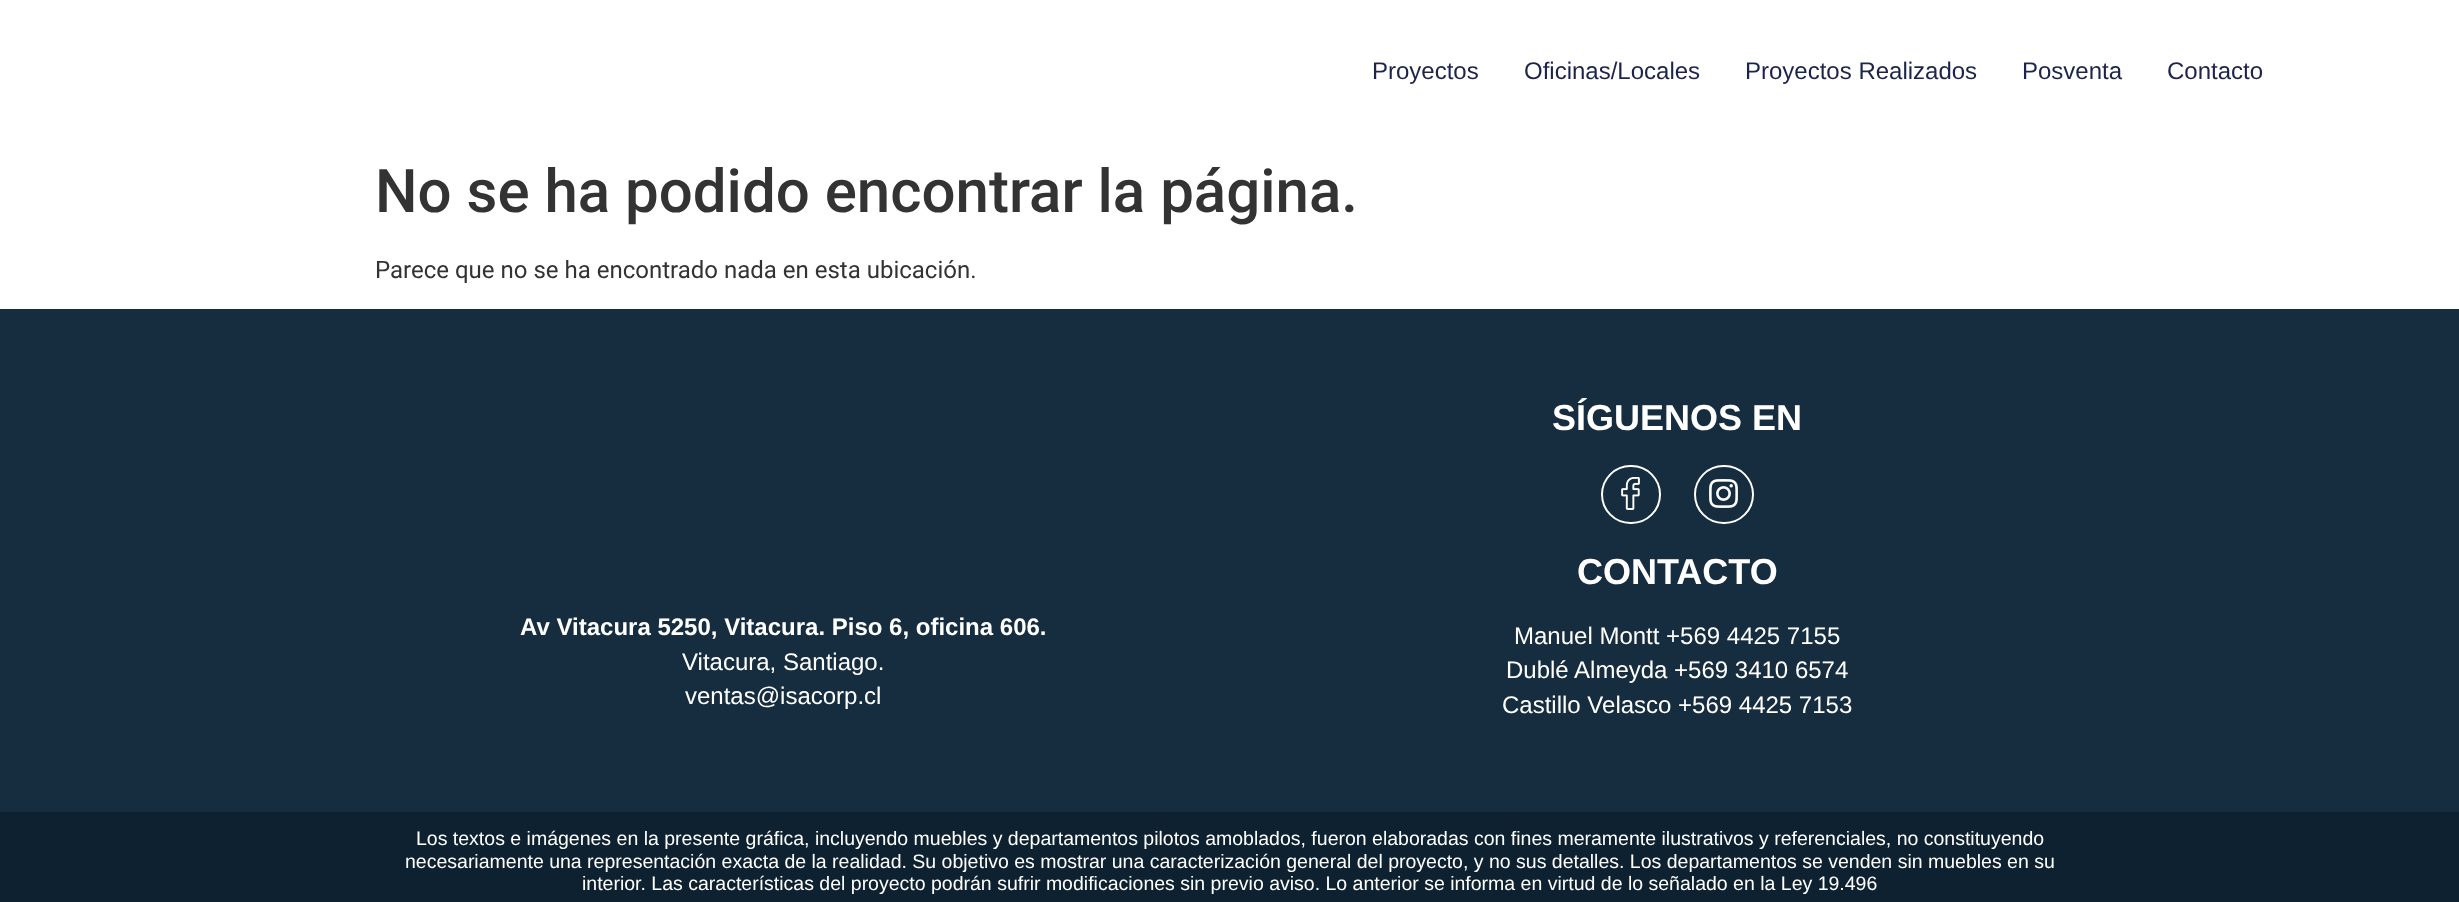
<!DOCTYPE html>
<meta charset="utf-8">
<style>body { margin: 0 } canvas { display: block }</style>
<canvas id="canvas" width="2459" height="902"></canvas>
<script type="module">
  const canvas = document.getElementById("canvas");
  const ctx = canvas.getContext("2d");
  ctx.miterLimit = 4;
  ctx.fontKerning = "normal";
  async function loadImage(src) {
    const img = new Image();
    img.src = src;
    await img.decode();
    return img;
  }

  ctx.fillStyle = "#ffffff";
  ctx.fillRect(0, 0, 2459, 902);
  ctx.font = "24px Liberation Sans";
  ctx.fillStyle = "#1c244b";
  ctx.fillText("Proyectos", 1372, 79);
  ctx.fillText("Oficinas/Locales", 1524, 79);
  ctx.fillText("Proyectos Realizados", 1745, 79);
  ctx.fillText("Posventa", 2022, 79);
  ctx.fillText("Contacto", 2167, 79);
  ctx.font = "500 60px Roboto";
  ctx.fillStyle = "#333333";
  ctx.fillText("No se ha podido encontrar la página.", 375, 212);
  ctx.font = "24px Roboto";
  ctx.fillText("Parece que no se ha encontrado nada en esta ubicación.", 375, 278);
  ctx.fillStyle = "#162c3f";
  ctx.fillRect(0, 309, 2459, 503);
  ctx.font = "bold 24px Liberation Sans";
  ctx.fillStyle = "#ffffff";
  ctx.fillText("Av Vitacura 5250, Vitacura. Piso 6, oficina 606.", 520, 635);
  ctx.font = "24px Liberation Sans";
  ctx.fillText("Vitacura, Santiago.", 682, 670);
  ctx.fillText("ventas@isacorp.cl", 685, 704);
  ctx.font = "bold 36px Liberation Sans";
  ctx.fillText("SÍGUENOS EN", 1552, 430);
  ctx.beginPath();
  ctx.roundRect(1602, 466, 58, 57, 28.5);
  ctx.strokeStyle = "#ffffff";
  ctx.lineWidth = 2;
  ctx.stroke();
  ctx.drawImage(await loadImage("img1.png"), 1621, 477, 19, 33);
  ctx.beginPath();
  ctx.roundRect(1695, 466, 58, 57, 28.5);
  ctx.stroke();
  ctx.drawImage(await loadImage("img2.png"), 1709, 479, 29, 29);
  ctx.fillText("CONTACTO", 1577, 584);
  ctx.font = "24px Liberation Sans";
  ctx.fillText("Manuel Montt +569 4425 7155", 1514, 644);
  ctx.fillText("Dublé Almeyda +569 3410 6574", 1506, 678);
  ctx.fillText("Castillo Velasco +569 4425 7153", 1502, 713);
  ctx.fillStyle = "#0e2130";
  ctx.fillRect(0, 812, 2459, 90);
  ctx.font = "19.5px Liberation Sans";
  ctx.fillStyle = "#ffffff";
  ctx.fillText("Los textos e imágenes en la presente gráfica, incluyendo muebles y departamentos pilotos amoblados, fueron elaboradas con fines meramente ilustrativos y referenciales, no constituyendo", 416, 845);
  ctx.fillText("necesariamente una representación exacta de la realidad. Su objetivo es mostrar una caracterización general del proyecto, y no sus detalles. Los departamentos se venden sin muebles en su", 405, 868);
  ctx.fillText("interior. Las características del proyecto podrán sufrir modificaciones sin previo aviso. Lo anterior se informa en virtud de lo señalado en la Ley 19.496", 582, 890);
</script>
